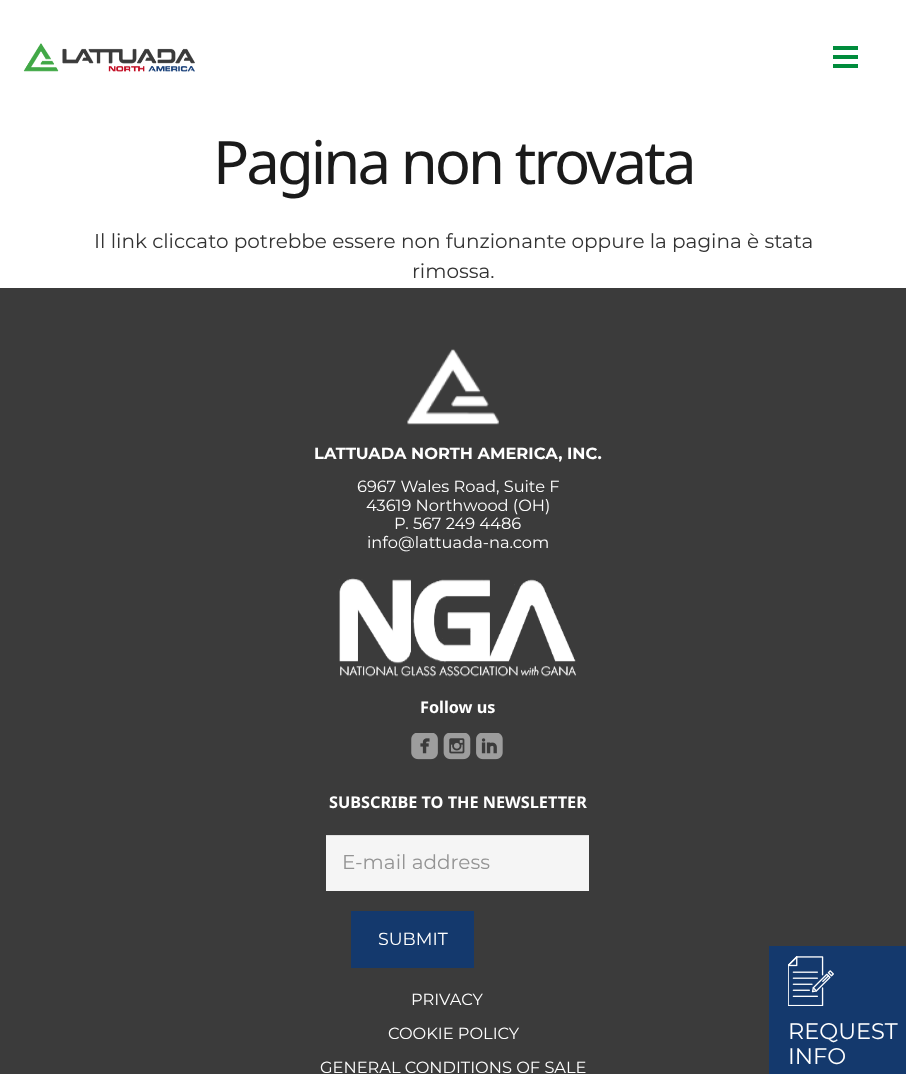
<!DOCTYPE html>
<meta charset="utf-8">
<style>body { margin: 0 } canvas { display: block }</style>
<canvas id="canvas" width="906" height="1074"></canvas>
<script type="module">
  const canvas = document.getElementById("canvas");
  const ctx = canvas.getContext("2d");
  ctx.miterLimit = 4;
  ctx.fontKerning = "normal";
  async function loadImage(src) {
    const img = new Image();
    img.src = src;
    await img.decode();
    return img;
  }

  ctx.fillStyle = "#ffffff";
  ctx.fillRect(0, 0, 906, 1074);
  ctx.drawImage(await loadImage("img1.png"), 23, 43, 172, 29);
  ctx.fillStyle = "#008c3c";
  ctx.fillRect(833, 55, 25, 4);
  ctx.fillRect(833, 46, 25, 4);
  ctx.fillRect(833, 64, 25, 4);
  ctx.letterSpacing = "-3px";
  ctx.font = "60px Noto Sans";
  ctx.fillStyle = "#1a1a1a";
  ctx.fillText("Pagina non trovata", 213, 184);
  ctx.letterSpacing = "0px";
  ctx.font = "20px Montserrat";
  ctx.fillStyle = "#333333";
  ctx.fillText("Il link cliccato potrebbe essere non funzionante oppure la pagina è stata", 94, 248);
  ctx.fillText("rimossa.", 412, 278);
  ctx.fillStyle = "#3b3b3b";
  ctx.fillRect(0, 288, 906, 786);
  ctx.drawImage(await loadImage("img2.png"), 407, 349, 92, 76);
  ctx.font = "bold 16.25px Montserrat";
  ctx.fillStyle = "#ffffff";
  ctx.fillText("LATTUADA NORTH AMERICA, INC.", 314, 459);
  ctx.font = "16.25px Montserrat";
  ctx.fillText("6967 Wales Road, Suite F", 357, 492);
  ctx.fillText("43619 Northwood (OH)", 366, 511);
  ctx.fillText("P. 567 249 4486", 394, 529);
  ctx.fillText("info@lattuada-na.com", 367, 548);
  ctx.drawImage(await loadImage("img3.png"), 339, 578, 238, 99);
  ctx.font = "bold 16.25px Noto Sans";
  ctx.fillText("Follow us", 420, 713);
  ctx.drawImage(await loadImage("img4.png"), 411, 733, 27, 27);
  ctx.drawImage(await loadImage("img5.png"), 443, 733, 28, 27);
  ctx.drawImage(await loadImage("img6.png"), 476, 733, 27, 27);
  ctx.fillText("SUBSCRIBE TO THE NEWSLETTER", 329, 808);
  ctx.fillStyle = "#f5f5f5";
  ctx.fillRect(326, 836, 263, 55);
  ctx.fillStyle = "#e1e1e1";
  ctx.fillRect(326, 835, 263, 1);
  ctx.font = "20px Montserrat";
  ctx.fillStyle = "#949494";
  ctx.fillText("E-mail address", 342, 869);
  ctx.fillStyle = "#14396d";
  ctx.fillRect(351, 911, 123, 57);
  ctx.font = "17.5px 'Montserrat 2'";
  ctx.fillStyle = "#ffffff";
  ctx.fillText("SUBMIT", 378, 945);
  ctx.font = "16.25px Montserrat";
  ctx.fillText("PRIVACY", 411, 1005);
  ctx.fillText("COOKIE POLICY", 388, 1039);
  ctx.fillText("GENERAL CONDITIONS OF SALE", 320, 1073);
  ctx.fillStyle = "#14396d";
  ctx.fillRect(769, 946, 137, 128);
  ctx.drawImage(await loadImage("img7.png"), 788, 956, 46, 50);
  ctx.font = "22.5px Montserrat";
  ctx.fillStyle = "#ffffff";
  ctx.fillText("REQUEST", 788, 1039);
  ctx.fillText("INFO", 788, 1064);
</script>
